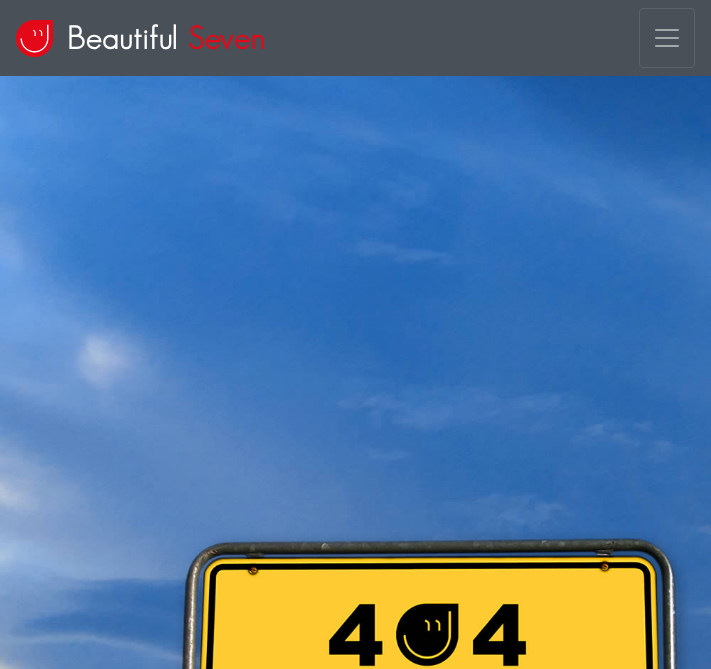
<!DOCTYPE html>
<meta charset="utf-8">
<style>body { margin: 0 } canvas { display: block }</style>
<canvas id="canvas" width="711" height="669"></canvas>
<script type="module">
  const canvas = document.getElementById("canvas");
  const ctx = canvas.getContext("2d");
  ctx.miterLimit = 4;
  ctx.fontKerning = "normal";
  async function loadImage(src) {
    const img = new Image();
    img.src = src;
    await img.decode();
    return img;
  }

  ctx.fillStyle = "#ffffff";
  ctx.fillRect(0, 0, 711, 669);
  ctx.fillStyle = "#495057";
  ctx.fillRect(0, 0, 711, 76);
  ctx.drawImage(await loadImage("img1.png"), 16, 20, 37, 37);
  ctx.letterSpacing = "0.75px";
  ctx.font = "bold 32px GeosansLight";
  ctx.fillStyle = "#ffffff";
  ctx.fillText("Beautiful", 67, 49);
  ctx.fillStyle = "#e30919";
  ctx.fillText("Seven", 188, 49);
  ctx.beginPath();
  ctx.roundRect(639.5, 8.5, 55, 59, 3.5);
  ctx.strokeStyle = "#5b6268";
  ctx.stroke();
  ctx.drawImage(await loadImage("img2.png"), 655, 29, 24, 18);
  ctx.drawImage(await loadImage("img3.png"), 0, 76, 711, 593);
</script>
